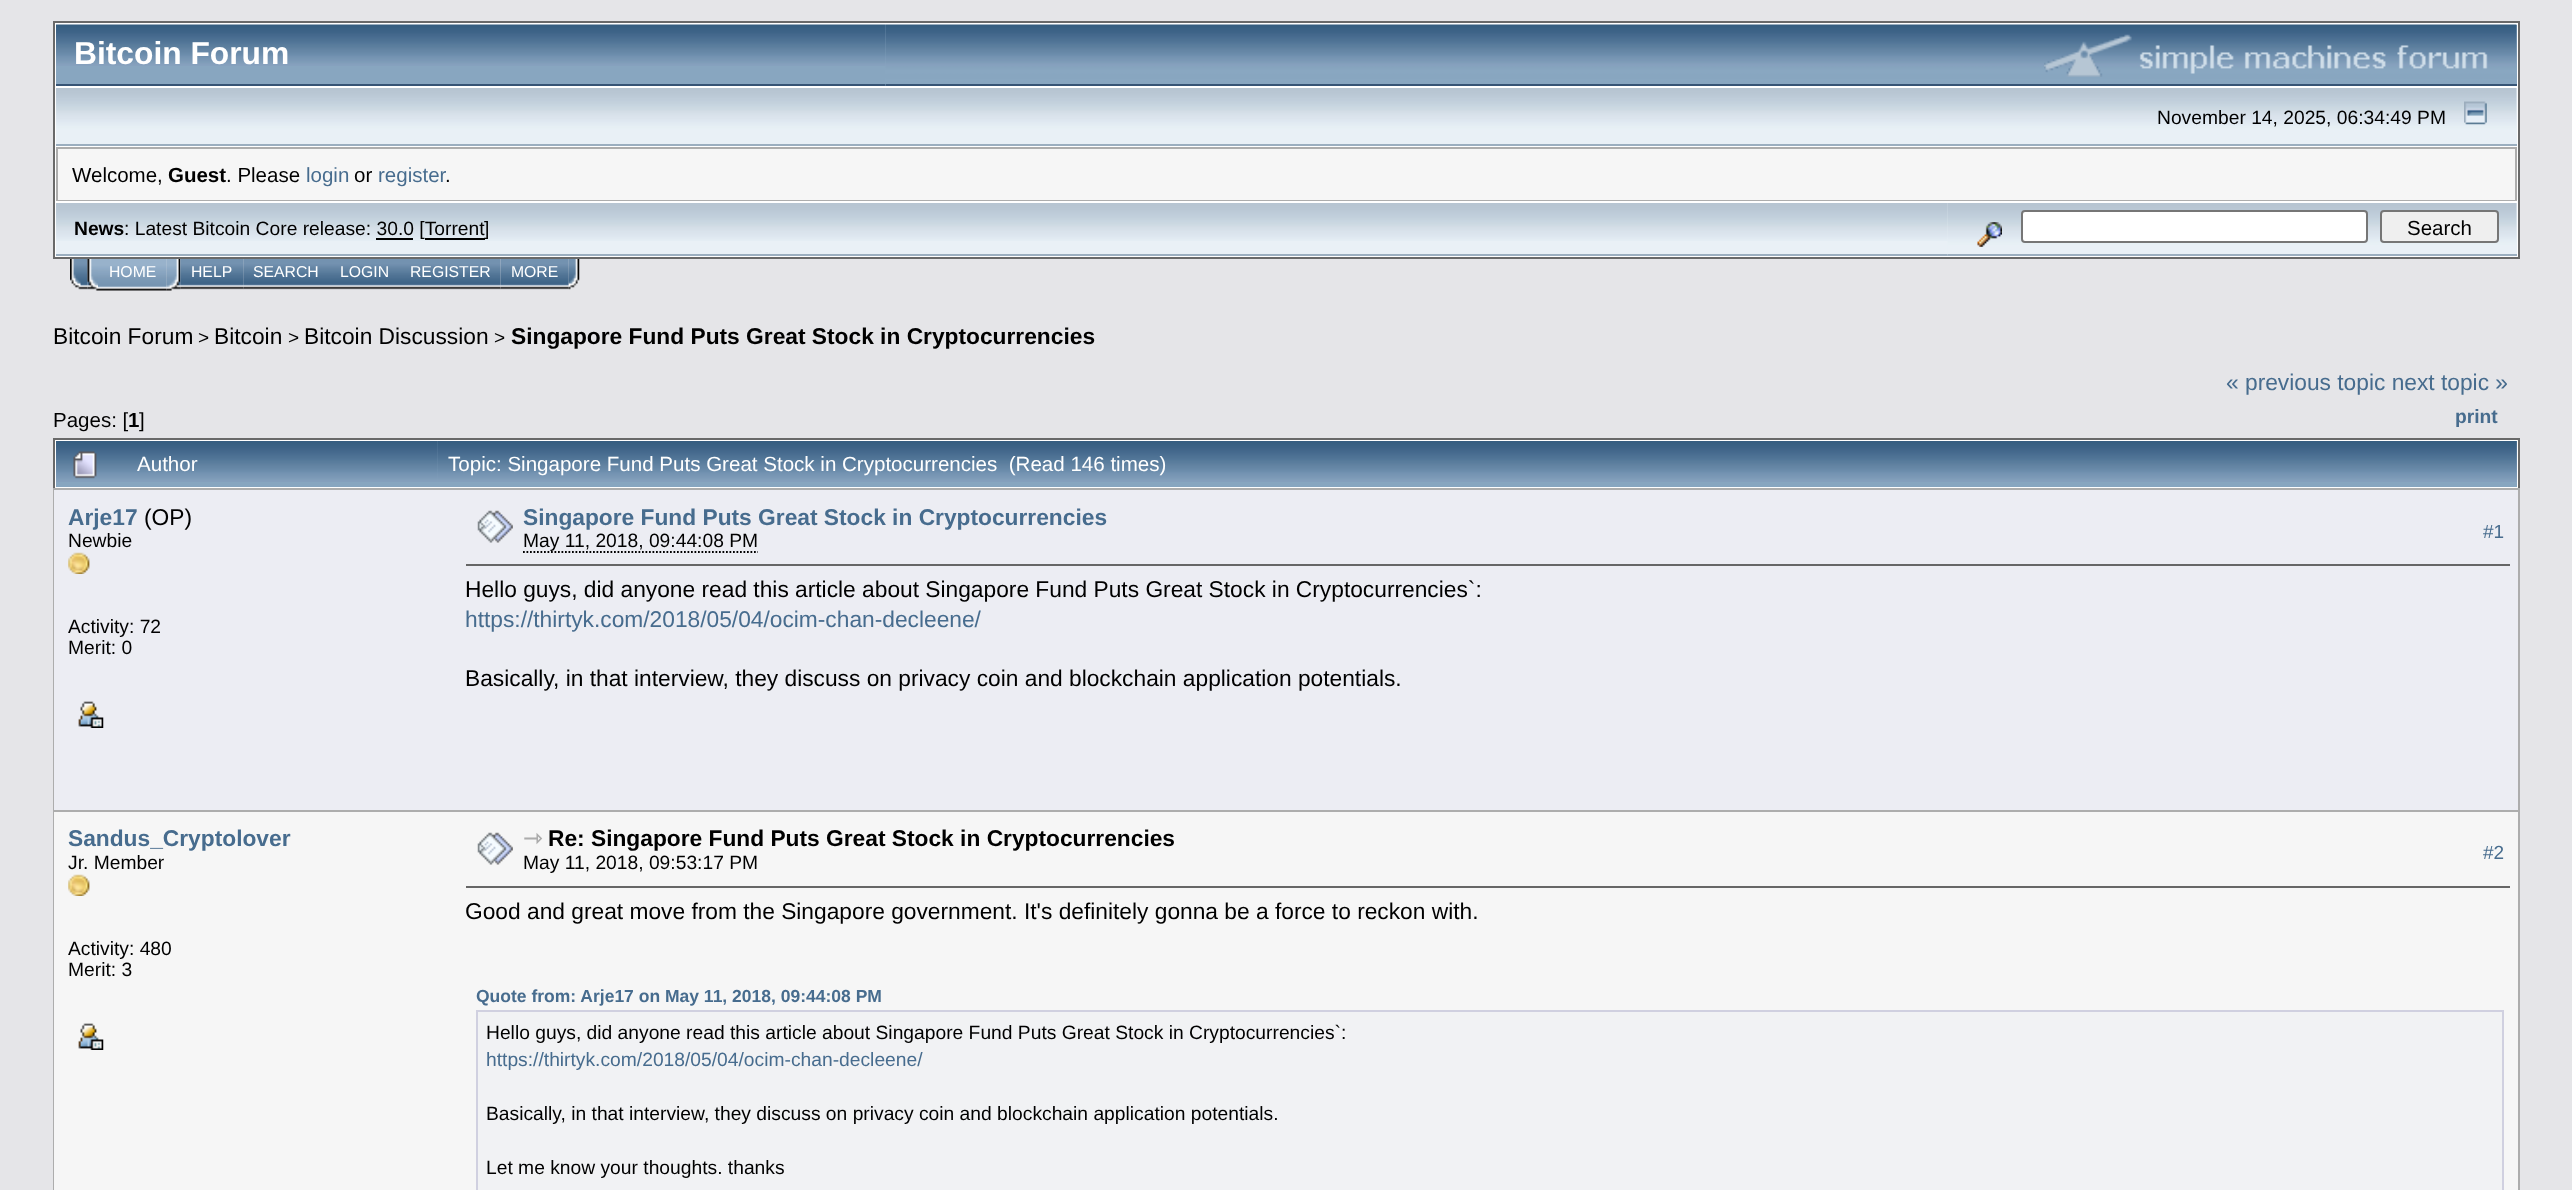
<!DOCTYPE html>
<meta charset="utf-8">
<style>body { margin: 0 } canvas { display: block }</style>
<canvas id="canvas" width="2572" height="1190"></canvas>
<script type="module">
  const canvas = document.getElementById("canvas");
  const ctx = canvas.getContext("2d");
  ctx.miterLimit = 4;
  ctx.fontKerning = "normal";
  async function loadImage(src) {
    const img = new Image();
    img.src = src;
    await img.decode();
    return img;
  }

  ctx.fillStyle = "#e5e5e8";
  ctx.fillRect(0, 0, 2572, 1190);
  ctx.fillStyle = "#ffffff";
  ctx.beginPath();
  ctx.rect(54, 22, 2465, 236);
  ctx.fill();
  ctx.strokeStyle = "#696969";
  ctx.lineWidth = 2;
  ctx.stroke();
  ctx.fillStyle = "#88a6c0";
  ctx.fillRect(56, 25, 830, 59);
  ctx.drawImage(await loadImage("img1.png"), 56, 24, 830, 42);
  ctx.fillStyle = "#375576";
  ctx.fillRect(56, 84, 830, 2);
  ctx.font = "bold 31.75px Liberation Sans";
  ctx.fillStyle = "#ffffff";
  ctx.fillText("Bitcoin Forum", 74, 64);
  ctx.fillStyle = "#88a6c0";
  ctx.fillRect(2516, 25, 1, 59);
  ctx.drawImage(await loadImage("img2.png"), 885, 24, 1632, 62);
  ctx.fillStyle = "#375576";
  ctx.fillRect(886, 84, 1631, 2);
  ctx.drawImage(await loadImage("img3.png"), 2044, 34, 444, 43);
  ctx.fillStyle = "#e9f0f6";
  ctx.fillRect(2516, 88, 1, 56);
  ctx.drawImage(await loadImage("img4.png"), 56, 88, 2461, 56);
  ctx.fillStyle = "#9baebf";
  ctx.fillRect(56, 144, 2461, 2);
  ctx.font = "19.25px Liberation Sans";
  ctx.fillStyle = "#000000";
  ctx.fillText("November 14, 2025, 06:34:49 PM", 2157, 124);
  ctx.drawImage(await loadImage("img5.png"), 2464, 101, 23, 24);
  ctx.fillStyle = "#adadad";
  ctx.fillRect(56, 147, 2461, 54);
  ctx.fillStyle = "#f6f6f6";
  ctx.fillRect(58, 149, 2457, 51);
  ctx.font = "20.5px Liberation Sans";
  ctx.fillStyle = "#000000";
  ctx.fillText("Welcome,", 72, 182);
  ctx.font = "bold 20.5px Liberation Sans";
  ctx.fillText("Guest", 168, 182);
  ctx.font = "20.5px Liberation Sans";
  ctx.fillText(". Please", 226, 182);
  ctx.fillStyle = "#476c8e";
  ctx.fillText("login", 306, 182);
  ctx.fillStyle = "#000000";
  ctx.fillText("or", 354, 182);
  ctx.fillStyle = "#476c8e";
  ctx.fillText("register", 378, 182);
  ctx.fillStyle = "#000000";
  ctx.fillText(".", 445, 182);
  ctx.fillStyle = "#e9f0f6";
  ctx.fillRect(56, 203, 1892, 51);
  ctx.drawImage(await loadImage("img6.png"), 56, 203, 1892, 38);
  ctx.fillStyle = "#9baebf";
  ctx.fillRect(56, 254, 1892, 2);
  ctx.font = "bold 19.25px Liberation Sans";
  ctx.fillStyle = "#000000";
  ctx.fillText("News", 74, 235);
  ctx.font = "19.25px Liberation Sans";
  ctx.fillText(": Latest Bitcoin Core release: 30.0 [Torrent", 124, 235);
  ctx.fillRect(376, 238, 37, 2);
  ctx.fillRect(425, 238, 60, 2);
  ctx.fillText("]", 484, 235);
  ctx.fillStyle = "#e9f0f6";
  ctx.fillRect(2516, 203, 1, 51);
  ctx.drawImage(await loadImage("img7.png"), 1947, 203, 570, 53);
  ctx.fillStyle = "#9baebf";
  ctx.fillRect(1948, 254, 569, 2);
  ctx.drawImage(await loadImage("img8.png"), 1977, 222, 25, 25);
  ctx.fillStyle = "#ffffff";
  ctx.beginPath();
  ctx.roundRect(2022, 211, 345, 31, 3);
  ctx.fill();
  ctx.strokeStyle = "#767676";
  ctx.stroke();
  ctx.fillStyle = "#efefef";
  ctx.beginPath();
  ctx.roundRect(2381, 211, 117, 31, 3);
  ctx.fill();
  ctx.stroke();
  ctx.font = "20.5px Liberation Sans";
  ctx.fillStyle = "#000000";
  ctx.fillText("Search", 2407, 235);
  ctx.drawImage(await loadImage("img9.png"), 70, 259, 18, 31);
  ctx.drawImage(await loadImage("img10.png"), 87, 259, 11, 32);
  ctx.drawImage(await loadImage("img11.png"), 98, 259, 69, 32);
  ctx.font = "15.75px Liberation Sans";
  ctx.fillStyle = "#ffffff";
  ctx.fillText("HOME", 109, 277);
  ctx.drawImage(await loadImage("img12.png"), 166, 259, 15, 32);
  ctx.drawImage(await loadImage("img13.png"), 180, 259, 64, 31);
  ctx.fillText("HELP", 191, 277);
  ctx.drawImage(await loadImage("img14.png"), 243, 259, 86, 31);
  ctx.fillText("SEARCH", 253, 277);
  ctx.drawImage(await loadImage("img15.png"), 329, 259, 70, 31);
  ctx.fillText("LOGIN", 340, 277);
  ctx.drawImage(await loadImage("img16.png"), 399, 259, 102, 31);
  ctx.fillText("REGISTER", 410, 277);
  ctx.drawImage(await loadImage("img17.png"), 500, 259, 69, 31);
  ctx.fillText("MORE", 511, 277);
  ctx.drawImage(await loadImage("img18.png"), 568, 259, 12, 31);
  ctx.font = "22.75px Liberation Sans";
  ctx.fillStyle = "#000000";
  ctx.fillText("Bitcoin Forum", 53, 344);
  ctx.font = "19px Liberation Sans";
  ctx.fillText(">", 198, 344);
  ctx.font = "22.75px Liberation Sans";
  ctx.fillText("Bitcoin", 214, 344);
  ctx.font = "19px Liberation Sans";
  ctx.fillText(">", 288, 344);
  ctx.font = "22.75px Liberation Sans";
  ctx.fillText("Bitcoin Discussion", 304, 344);
  ctx.font = "19px Liberation Sans";
  ctx.fillText(">", 494, 344);
  ctx.font = "bold 22.75px Liberation Sans";
  ctx.fillText("Singapore Fund Puts Great Stock in Cryptocurrencies", 511, 344);
  ctx.font = "20.5px Liberation Sans";
  ctx.fillText("Pages: [", 53, 427);
  ctx.font = "bold 20.5px Liberation Sans";
  ctx.fillText("1", 128, 427);
  ctx.font = "20.5px Liberation Sans";
  ctx.fillText("]", 139, 427);
  ctx.font = "22.75px Liberation Sans";
  ctx.fillStyle = "#476c8e";
  ctx.fillText("« previous topic next topic »", 2226, 390);
  ctx.font = "bold 19.25px Liberation Sans";
  ctx.fillText("print", 2455, 423);
  ctx.fillStyle = "#ffffff";
  ctx.fillRect(55, 440, 2463, 48);
  ctx.fillStyle = "#696969";
  ctx.fillRect(53, 438, 2467, 2);
  ctx.fillRect(2518, 438, 2, 50);
  ctx.fillRect(53, 438, 2, 50);
  ctx.fillStyle = "#88a6c0";
  ctx.fillRect(56, 482, 63, 5);
  ctx.drawImage(await loadImage("img19.png"), 56, 441, 63, 41);
  ctx.drawImage(await loadImage("img20.png"), 73, 451, 24, 28);
  ctx.fillRect(119, 441, 2398, 46);
  ctx.drawImage(await loadImage("img21.png"), 119, 441, 319, 41);
  ctx.font = "20.55px Liberation Sans";
  ctx.fillStyle = "#ffffff";
  ctx.fillText("Author", 137, 471);
  ctx.drawImage(await loadImage("img22.png"), 437, 441, 2080, 41);
  ctx.fillText("Topic: Singapore Fund Puts Great Stock in Cryptocurrencies  (Read 146 times)", 448, 471);
  ctx.fillStyle = "#adadad";
  ctx.fillRect(53, 488, 2467, 702);
  ctx.fillStyle = "#ecedf3";
  ctx.fillRect(54, 490, 2464, 320);
  ctx.font = "bold 22.75px Liberation Sans";
  ctx.fillStyle = "#476c8e";
  ctx.fillText("Arje17", 68, 525);
  ctx.font = "22.75px Liberation Sans";
  ctx.fillStyle = "#000000";
  ctx.fillText("(OP)", 144, 525);
  ctx.font = "19.25px Liberation Sans";
  ctx.fillText("Newbie", 68, 547);
  ctx.drawImage(await loadImage("img23.png"), 68, 552, 22, 22);
  ctx.fillText("Activity: 72", 68, 633);
  ctx.fillText("Merit: 0", 68, 654);
  ctx.drawImage(await loadImage("img24.png"), 78, 701, 26, 27);
  ctx.drawImage(await loadImage("img25.png"), 477, 510, 36, 33);
  ctx.font = "bold 22.75px Liberation Sans";
  ctx.fillStyle = "#476c8e";
  ctx.fillText("Singapore Fund Puts Great Stock in Cryptocurrencies", 523, 525);
  ctx.font = "19.25px Liberation Sans";
  ctx.fillStyle = "#000000";
  ctx.fillText("May 11, 2018, 09:44:08 PM", 523, 547);
  ctx.beginPath();
  ctx.moveTo(523, 552);
  ctx.lineTo(758, 552);
  ctx.strokeStyle = "#000000";
  ctx.lineWidth = 1.8;
  ctx.setLineDash([1.75, 1.75]);
  ctx.stroke();
  ctx.font = "19px Liberation Sans";
  ctx.fillStyle = "#476c8e";
  ctx.fillText("#1", 2483, 538);
  ctx.fillStyle = "#666666";
  ctx.fillRect(466, 564, 2044, 2);
  ctx.font = "22.75px Liberation Sans";
  ctx.fillStyle = "#000000";
  ctx.fillText("Hello guys, did anyone read this article about Singapore Fund Puts Great Stock in Cryptocurrencies`:", 465, 597);
  ctx.fillStyle = "#476c8e";
  ctx.fillText("https://thirtyk.com/2018/05/04/ocim-chan-decleene/", 465, 627);
  ctx.fillStyle = "#000000";
  ctx.fillText("Basically, in that interview, they discuss on privacy coin and blockchain application potentials.", 465, 686);
  ctx.fillStyle = "#f6f6f6";
  ctx.fillRect(54, 812, 2464, 378);
  ctx.font = "bold 22.75px Liberation Sans";
  ctx.fillStyle = "#476c8e";
  ctx.fillText("Sandus_Cryptolover", 68, 846);
  ctx.font = "19.25px Liberation Sans";
  ctx.fillStyle = "#000000";
  ctx.fillText("Jr. Member", 68, 869);
  ctx.drawImage(await loadImage("img26.png"), 68, 874, 22, 22);
  ctx.fillText("Activity: 480", 68, 955);
  ctx.fillText("Merit: 3", 68, 976);
  ctx.drawImage(await loadImage("img27.png"), 78, 1023, 26, 27);
  ctx.drawImage(await loadImage("img28.png"), 477, 832, 36, 33);
  ctx.font = "bold 22.75px DejaVu Sans";
  ctx.fillStyle = "#acacac";
  ctx.fillText("⇾", 523, 846);
  ctx.font = "bold 22.75px Liberation Sans";
  ctx.fillStyle = "#000000";
  ctx.fillText("Re: Singapore Fund Puts Great Stock in Cryptocurrencies", 548, 846);
  ctx.font = "19.25px Liberation Sans";
  ctx.fillText("May 11, 2018, 09:53:17 PM", 523, 869);
  ctx.font = "19px Liberation Sans";
  ctx.fillStyle = "#476c8e";
  ctx.fillText("#2", 2483, 859);
  ctx.fillStyle = "#666666";
  ctx.fillRect(466, 886, 2044, 2);
  ctx.font = "22.75px Liberation Sans";
  ctx.fillStyle = "#000000";
  ctx.fillText("Good and great move from the Singapore government. It's definitely gonna be a force to reckon with.", 465, 919);
  ctx.font = "bold 17.5px Liberation Sans";
  ctx.fillStyle = "#476c8e";
  ctx.fillText("Quote from: Arje17 on May 11, 2018, 09:44:08 PM", 476, 1002);
  ctx.fillStyle = "#f1f2f4";
  ctx.beginPath();
  ctx.rect(477, 1011, 2026, 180);
  ctx.fill();
  ctx.strokeStyle = "#d0d0e0";
  ctx.lineWidth = 2;
  ctx.setLineDash([]);
  ctx.stroke();
  ctx.font = "19.25px Liberation Sans";
  ctx.fillStyle = "#000000";
  ctx.fillText("Hello guys, did anyone read this article about Singapore Fund Puts Great Stock in Cryptocurrencies`:", 486, 1039);
  ctx.fillStyle = "#476c8e";
  ctx.fillText("https://thirtyk.com/2018/05/04/ocim-chan-decleene/", 486, 1066);
  ctx.fillStyle = "#000000";
  ctx.fillText("Basically, in that interview, they discuss on privacy coin and blockchain application potentials.", 486, 1120);
  ctx.fillText("Let me know your thoughts. thanks", 486, 1174);
</script>
